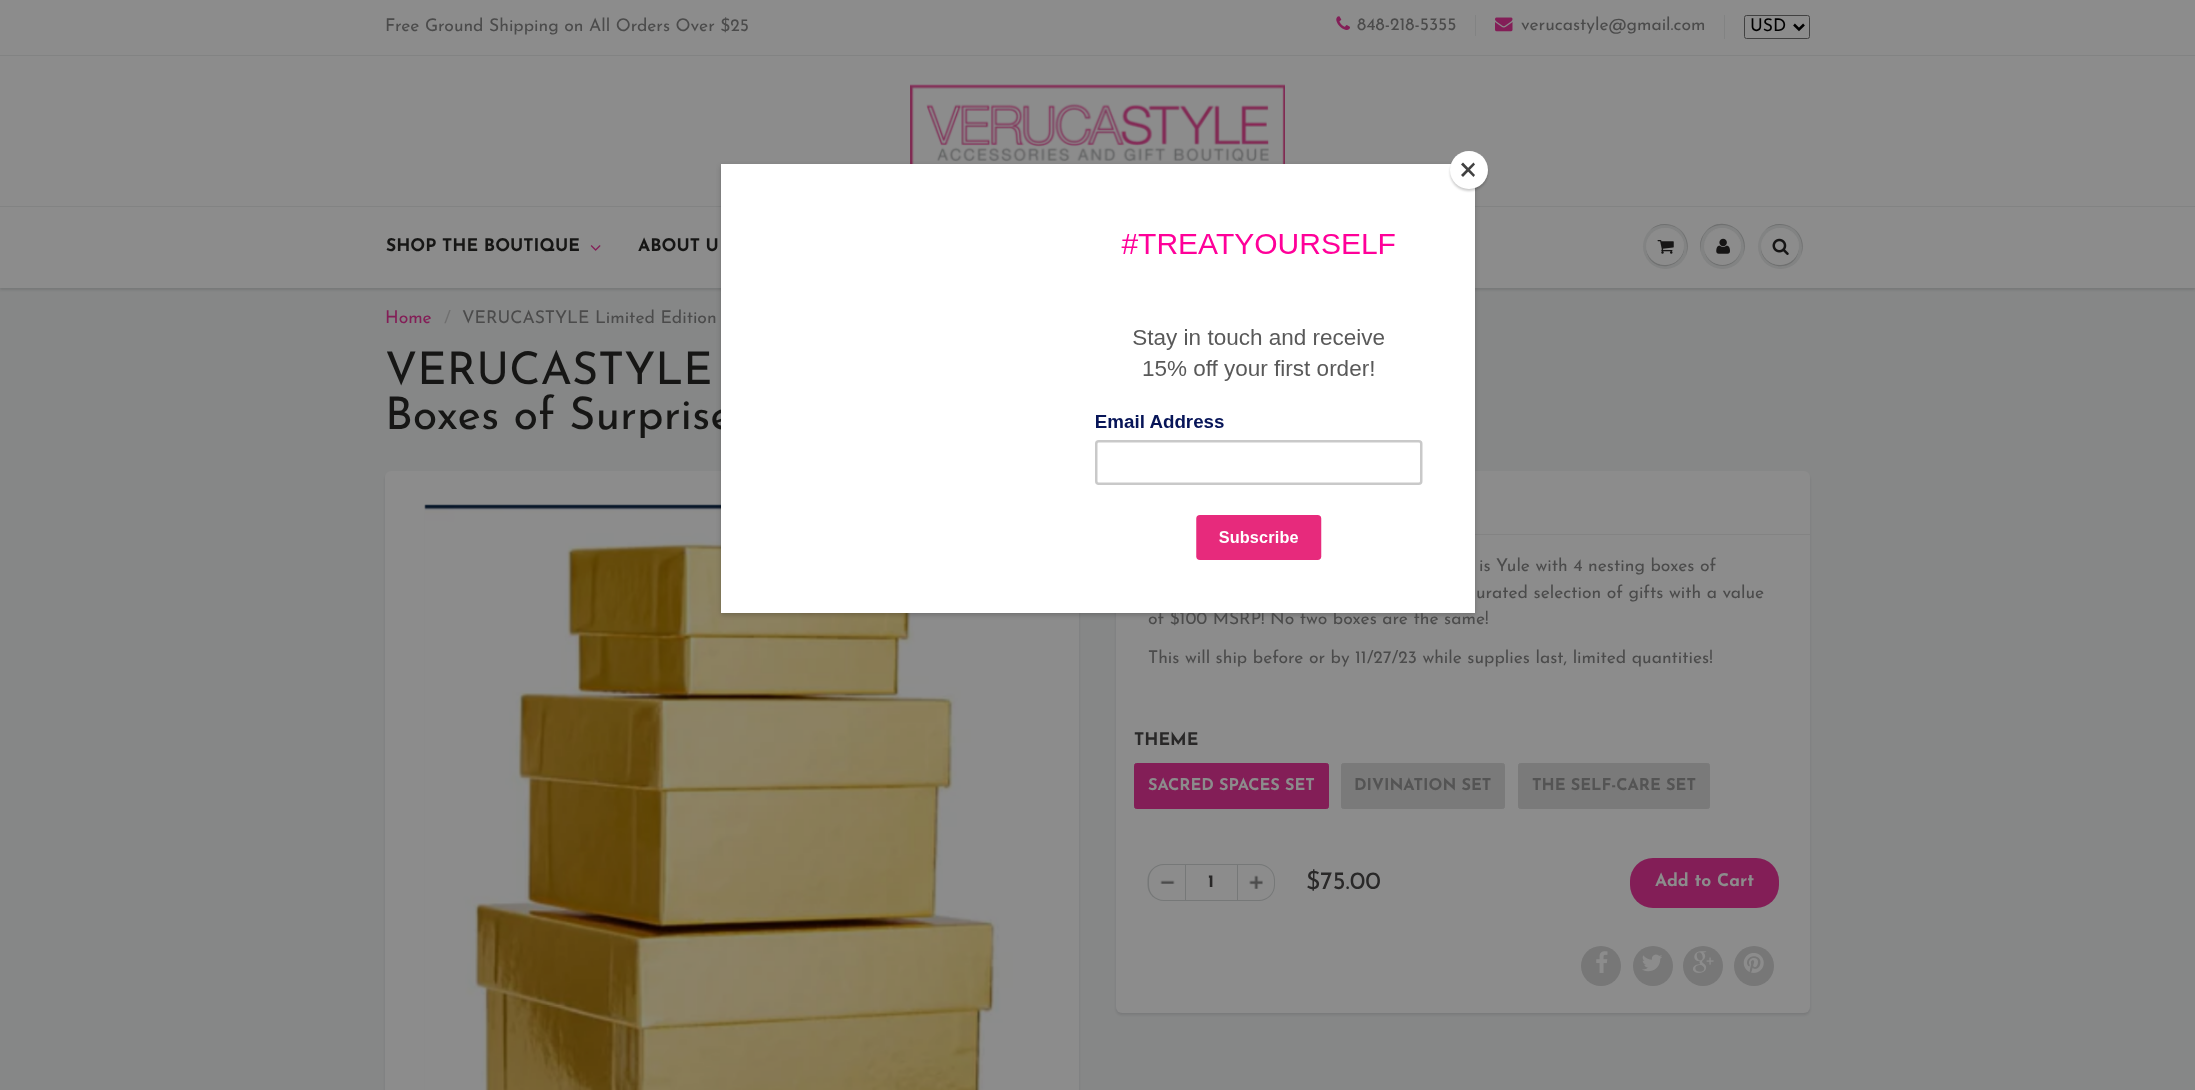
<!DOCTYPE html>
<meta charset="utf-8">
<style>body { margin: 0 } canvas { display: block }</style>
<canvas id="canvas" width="2195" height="1090"></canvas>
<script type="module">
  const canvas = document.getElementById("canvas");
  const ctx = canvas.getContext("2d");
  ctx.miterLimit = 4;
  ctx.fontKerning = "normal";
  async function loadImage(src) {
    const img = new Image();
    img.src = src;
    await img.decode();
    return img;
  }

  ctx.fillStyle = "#8c8c8c";
  ctx.fillRect(0, 0, 2195, 1090);
  ctx.font = "17.5px Josefin Sans";
  ctx.fillStyle = "#4b4b4b";
  ctx.fillText("Free Ground Shipping on All Orders Over $25", 385, 31);
  ctx.drawImage(await loadImage("img1.png"), 1336, 16, 14, 14);
  ctx.fillText("848-218-5355", 1357, 30);
  ctx.fillStyle = "#828383";
  ctx.fillRect(1475, 15, 1, 21);
  ctx.drawImage(await loadImage("img2.png"), 1495, 17, 18, 15);
  ctx.fillStyle = "#4b4b4b";
  ctx.fillText("verucastyle@gmail.com", 1521, 30);
  ctx.fillStyle = "#828383";
  ctx.fillRect(1724, 15, 1, 24);
  ctx.beginPath();
  ctx.roundRect(1744.5, 15.5, 65, 23, 2);
  ctx.strokeStyle = "#414141";
  ctx.stroke();
  ctx.beginPath();
  ctx.moveTo(1794, 24.5);
  ctx.lineTo(1799, 29.5);
  ctx.lineTo(1804, 24.5);
  ctx.strokeStyle = "#000000";
  ctx.lineWidth = 2.5;
  ctx.stroke();
  ctx.fillStyle = "#000000";
  ctx.fillText("USD", 1750, 31);
  ctx.fillStyle = "#828383";
  ctx.fillRect(0, 55, 2195, 1);
  ctx.drawImage(await loadImage("img3.png"), 910, 84, 375, 80);
  ctx.beginPath();
  ctx.arc(1665.5, 246.5, 22.5, 0, Math.PI * 2);
  ctx.fill();
  ctx.fillStyle = "#6f7070";
  ctx.beginPath();
  ctx.moveTo(1665, 225);
  ctx.bezierCurveTo(1683, 225, 1690, 242, 1686, 255);
  ctx.bezierCurveTo(1695, 233, 1667, 214, 1650, 230);
  ctx.bezierCurveTo(1654, 227, 1659, 225, 1665, 225);
  ctx.closePath();
  ctx.fill();
  ctx.fillStyle = "#828383";
  ctx.beginPath();
  ctx.arc(1722.5, 246.5, 22.5, 0, Math.PI * 2);
  ctx.fill();
  ctx.fillStyle = "#6f7070";
  ctx.beginPath();
  ctx.moveTo(1722, 225);
  ctx.bezierCurveTo(1740, 225, 1747, 242, 1743, 255);
  ctx.bezierCurveTo(1753, 231, 1719, 211, 1704, 234);
  ctx.bezierCurveTo(1700, 239, 1699, 246, 1701, 252);
  ctx.bezierCurveTo(1699, 239, 1706, 225, 1722, 225);
  ctx.closePath();
  ctx.fill();
  ctx.fillStyle = "#828383";
  ctx.beginPath();
  ctx.arc(1780.5, 246.5, 22.5, 0, Math.PI * 2);
  ctx.fill();
  ctx.fillStyle = "#6f7070";
  ctx.beginPath();
  ctx.moveTo(1780, 225);
  ctx.bezierCurveTo(1798, 225, 1805, 242, 1801, 255);
  ctx.bezierCurveTo(1810, 233, 1782, 214, 1765, 230);
  ctx.bezierCurveTo(1769, 227, 1774, 225, 1780, 225);
  ctx.closePath();
  ctx.fill();
  ctx.fillStyle = "#868787";
  ctx.fillRect(0, 288, 2195, 802);
  ctx.save();
  ctx.beginPath();
  ctx.moveTo(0, 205);
  ctx.lineTo(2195, 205);
  ctx.lineTo(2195, 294);
  ctx.lineTo(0, 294);
  ctx.closePath();
  ctx.moveTo(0, 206);
  ctx.lineTo(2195, 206);
  ctx.lineTo(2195, 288);
  ctx.lineTo(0, 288);
  ctx.closePath();
  ctx.clip("evenodd");
  ctx.fillStyle = "rgba(6, 14, 15, 0.12)";
  ctx.filter = "blur(1px)";
  ctx.beginPath();
  ctx.rect(0, 209, 2195, 81);
  ctx.fill();
  ctx.filter = "none";
  ctx.restore();
  ctx.fillStyle = "#828383";
  ctx.fillRect(0, 206, 2195, 1);
  ctx.font = "bold 17.5px Josefin Sans";
  ctx.fillStyle = "#161615";
  ctx.fillText("SHOP THE BOUTIQUE", 386, 251);
  ctx.drawImage(await loadImage("img4.png"), 590, 245, 11, 6);
  ctx.fillText("ABOUT U", 638, 251);
  ctx.fillStyle = "#6f7070";
  ctx.beginPath();
  ctx.moveTo(1646.5, 243.5);
  ctx.bezierCurveTo(1645.5, 248, 1646.5, 253.5, 1649, 258);
  ctx.bezierCurveTo(1660.5, 275, 1688, 263.5, 1683.5, 243.5);
  ctx.bezierCurveTo(1686.5, 262.5, 1660.5, 273.5, 1649.5, 256.5);
  ctx.bezierCurveTo(1647, 253, 1645.5, 248, 1646.5, 243.5);
  ctx.closePath();
  ctx.fill();
  ctx.fillStyle = "#8c8c8c";
  ctx.beginPath();
  ctx.roundRect(1646, 228, 38, 37, 18.5);
  ctx.fill();
  ctx.beginPath();
  ctx.moveTo(1665, 229);
  ctx.bezierCurveTo(1679, 229, 1685, 241, 1683, 251);
  ctx.bezierCurveTo(1685, 246, 1684, 240, 1681, 236);
  ctx.bezierCurveTo(1669, 219, 1642, 231, 1647, 251);
  ctx.bezierCurveTo(1645, 241, 1651, 229, 1665, 229);
  ctx.closePath();
  ctx.fill();
  ctx.drawImage(await loadImage("img5.png"), 1657, 240, 17, 14);
  ctx.fillStyle = "#6f7070";
  ctx.beginPath();
  ctx.moveTo(1704.5, 250.5);
  ctx.bezierCurveTo(1707.5, 271, 1737.5, 271, 1740.5, 250.5);
  ctx.bezierCurveTo(1736, 269.5, 1709, 269.5, 1704.5, 250.5);
  ctx.closePath();
  ctx.fill();
  ctx.fillStyle = "#8c8c8c";
  ctx.beginPath();
  ctx.arc(1722.5, 246.5, 18.5, 0, Math.PI * 2);
  ctx.fill();
  ctx.beginPath();
  ctx.moveTo(1722, 229);
  ctx.bezierCurveTo(1736, 229, 1742, 240.5, 1740.5, 251);
  ctx.bezierCurveTo(1745.5, 231.5, 1719, 219, 1707, 236);
  ctx.bezierCurveTo(1705, 239.5, 1704, 243, 1704, 247);
  ctx.bezierCurveTo(1704, 238, 1710, 229, 1722, 229);
  ctx.closePath();
  ctx.fill();
  ctx.drawImage(await loadImage("img6.png"), 1716, 238, 14, 16);
  ctx.fillStyle = "#6f7070";
  ctx.beginPath();
  ctx.moveTo(1761.5, 243.5);
  ctx.bezierCurveTo(1757, 263.5, 1784.5, 275, 1796, 258);
  ctx.bezierCurveTo(1798.5, 253.5, 1799.5, 248, 1798.5, 243.5);
  ctx.bezierCurveTo(1801.5, 262.5, 1775.5, 273.5, 1764.5, 256.5);
  ctx.bezierCurveTo(1762, 253, 1760.5, 248, 1761.5, 243.5);
  ctx.closePath();
  ctx.fill();
  ctx.fillStyle = "#8c8c8c";
  ctx.beginPath();
  ctx.roundRect(1761, 228, 38, 37, 18.5);
  ctx.fill();
  ctx.beginPath();
  ctx.moveTo(1780, 229);
  ctx.bezierCurveTo(1794, 229, 1800, 241, 1798, 251);
  ctx.bezierCurveTo(1800, 246, 1799, 240, 1796, 236);
  ctx.bezierCurveTo(1784, 219, 1757, 231, 1762, 251);
  ctx.bezierCurveTo(1760, 241, 1766, 229, 1780, 229);
  ctx.closePath();
  ctx.fill();
  ctx.drawImage(await loadImage("img7.png"), 1772, 238, 17, 17);
  ctx.fillStyle = "rgba(6, 14, 15, 0.1)";
  ctx.filter = "blur(1px)";
  ctx.beginPath();
  ctx.roundRect(385, 474, 694, 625, 6);
  ctx.fill();
  ctx.filter = "none";
  ctx.fillStyle = "#8c8c8c";
  ctx.beginPath();
  ctx.roundRect(385, 471, 694, 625, 6);
  ctx.fill();
  ctx.drawImage(await loadImage("img9.png"), 424, 504, 616, 586);
  ctx.fillStyle = "rgba(6, 14, 15, 0.1)";
  ctx.filter = "blur(1px)";
  ctx.beginPath();
  ctx.roundRect(1116, 474, 694, 541, 6);
  ctx.fill();
  ctx.filter = "none";
  ctx.fillStyle = "#8c8c8c";
  ctx.beginPath();
  ctx.roundRect(1116, 471, 694, 542, 6);
  ctx.fill();
  ctx.fillStyle = "#838383";
  ctx.fillRect(1475, 534, 335, 1);
  ctx.fillStyle = "rgba(0, 0, 0, 0.2)";
  ctx.filter = "blur(2.5px)";
  ctx.beginPath();
  ctx.rect(721, 166, 754, 449);
  ctx.fill();
  ctx.filter = "none";
  ctx.font = "45px Josefin Sans";
  ctx.fillStyle = "#161615";
  ctx.fillText("Boxes of Surprise", 385, 429);
  ctx.font = "17.5px Josefin Sans";
  ctx.fillStyle = "#4b4b4b";
  ctx.fillText("of $100 MSRP! No two boxes are the same!", 1148, 624);
  ctx.drawImage(await loadImage("img8.png"), 721, 164, 754, 449);
  ctx.fillStyle = "rgba(0, 0, 0, 0.2)";
  ctx.filter = "blur(1px)";
  ctx.beginPath();
  ctx.roundRect(1450, 154, 38, 37, 18.5);
  ctx.fill();
  ctx.filter = "none";
  ctx.fillStyle = "#ffffff";
  ctx.beginPath();
  ctx.arc(1469, 170, 19, 0, Math.PI * 2);
  ctx.fill();
  ctx.fillStyle = "#414141";
  ctx.beginPath();
  ctx.moveTo(1473.5, 162.5);
  ctx.lineTo(1475, 164.5);
  ctx.lineTo(1463, 177);
  ctx.lineTo(1461, 175);
  ctx.closePath();
  ctx.fill();
  ctx.beginPath();
  ctx.moveTo(1461, 164.5);
  ctx.lineTo(1463, 162.5);
  ctx.lineTo(1475, 175);
  ctx.lineTo(1473.5, 177);
  ctx.closePath();
  ctx.fill();
  ctx.fillStyle = "#831e57";
  ctx.fillText("Home", 385, 323);
  ctx.fillStyle = "#707070";
  ctx.fillText("/", 444, 323);
  ctx.fillStyle = "#4b4b4b";
  ctx.fillText("VERUCASTYLE Limited Edition", 462, 323);
  ctx.font = "45px Josefin Sans";
  ctx.fillStyle = "#161615";
  ctx.fillText("VERUCASTYLE", 385, 384);
  ctx.font = "17.5px Josefin Sans";
  ctx.fillStyle = "#4b4b4b";
  ctx.fillText("is Yule with 4 nesting boxes of", 1479, 571);
  ctx.fillText("urated selection of gifts with a value", 1476, 598);
  ctx.fillText("This will ship before or by 11/27/23 while supplies last, limited quantities!", 1148, 663);
  ctx.font = "bold 17.5px Josefin Sans";
  ctx.fillStyle = "#292828";
  ctx.fillText("THEME", 1134, 745);
  ctx.fillStyle = "#831e57";
  ctx.beginPath();
  ctx.roundRect(1134.5, 763.5, 194, 45, 2);
  ctx.fill();
  ctx.strokeStyle = "#831e57";
  ctx.lineWidth = 1;
  ctx.stroke();
  ctx.font = "bold 16.25px Josefin Sans";
  ctx.fillStyle = "#8c8c8c";
  ctx.fillText("SACRED SPACES SET", 1148, 790);
  ctx.fillStyle = "#7a7a7a";
  ctx.beginPath();
  ctx.roundRect(1341.5, 763.5, 163, 45, 2);
  ctx.fill();
  ctx.strokeStyle = "#7a7a7a";
  ctx.stroke();
  ctx.fillStyle = "#545454";
  ctx.fillText("DIVINATION SET", 1354, 790);
  ctx.fillStyle = "#7a7a7a";
  ctx.beginPath();
  ctx.roundRect(1518.5, 763.5, 191, 45, 2);
  ctx.fill();
  ctx.stroke();
  ctx.fillStyle = "#545454";
  ctx.fillText("THE SELF-CARE SET", 1532, 790);
  ctx.drawImage(await loadImage("img10.png"), 1160, 880, 15, 4);
  ctx.fillStyle = "#767878";
  ctx.beginPath();
  ctx.moveTo(1164, 864);
  ctx.lineTo(1185, 864);
  ctx.lineTo(1185, 901);
  ctx.lineTo(1164, 901);
  ctx.bezierCurveTo(1155, 901, 1147.5, 894, 1147.5, 885);
  ctx.lineTo(1147.5, 880);
  ctx.bezierCurveTo(1147.5, 871, 1155, 864, 1164, 864);
  ctx.closePath();
  ctx.moveTo(1164, 865);
  ctx.lineTo(1185, 865);
  ctx.lineTo(1185, 900);
  ctx.lineTo(1164, 900);
  ctx.bezierCurveTo(1155.5, 900, 1149, 893.5, 1149, 885);
  ctx.lineTo(1149, 880);
  ctx.bezierCurveTo(1149, 871.5, 1155.5, 865, 1164, 865);
  ctx.closePath();
  ctx.fill("evenodd");
  ctx.strokeStyle = "#767878";
  ctx.strokeRect(1185.5, 864.5, 52, 36);
  ctx.font = "bold 17.5px Josefin Sans";
  ctx.fillStyle = "#292828";
  ctx.fillText("1", 1208, 887);
  ctx.drawImage(await loadImage("img11.png"), 1249, 875, 14, 14);
  ctx.fillStyle = "#767878";
  ctx.beginPath();
  ctx.moveTo(1237.5, 864);
  ctx.lineTo(1259, 864);
  ctx.bezierCurveTo(1267.5, 864, 1275, 871, 1275, 880);
  ctx.lineTo(1275, 885);
  ctx.bezierCurveTo(1275, 894, 1267.5, 901, 1259, 901);
  ctx.lineTo(1237.5, 901);
  ctx.closePath();
  ctx.moveTo(1237.5, 865);
  ctx.lineTo(1259, 865);
  ctx.bezierCurveTo(1267, 865, 1274, 871.5, 1274, 880);
  ctx.lineTo(1274, 885);
  ctx.bezierCurveTo(1274, 893.5, 1267, 900, 1259, 900);
  ctx.lineTo(1237.5, 900);
  ctx.closePath();
  ctx.fill("evenodd");
  ctx.font = "25px Josefin Sans";
  ctx.fillStyle = "#292828";
  ctx.fillText("$75.00", 1306, 889);
  ctx.fillStyle = "#831e57";
  ctx.beginPath();
  ctx.roundRect(1630, 858, 149, 50, 23);
  ctx.fill();
  ctx.font = "bold 17.5px Josefin Sans";
  ctx.fillStyle = "#8c8c8c";
  ctx.fillText("Add to Cart", 1655, 886);
  ctx.fillStyle = "#777777";
  ctx.beginPath();
  ctx.arc(1601, 966, 20, 0, Math.PI * 2);
  ctx.fill();
  ctx.drawImage(await loadImage("img12.png"), 1596, 951, 12, 22);
  ctx.beginPath();
  ctx.arc(1653, 966, 20, 0, Math.PI * 2);
  ctx.fill();
  ctx.drawImage(await loadImage("img13.png"), 1642, 954, 20, 18);
  ctx.beginPath();
  ctx.arc(1703, 966, 20, 0, Math.PI * 2);
  ctx.fill();
  ctx.drawImage(await loadImage("img14.png"), 1693, 951, 21, 22);
  ctx.beginPath();
  ctx.arc(1754, 966, 20, 0, Math.PI * 2);
  ctx.fill();
  ctx.drawImage(await loadImage("img15.png"), 1743, 953, 21, 20);
</script>
